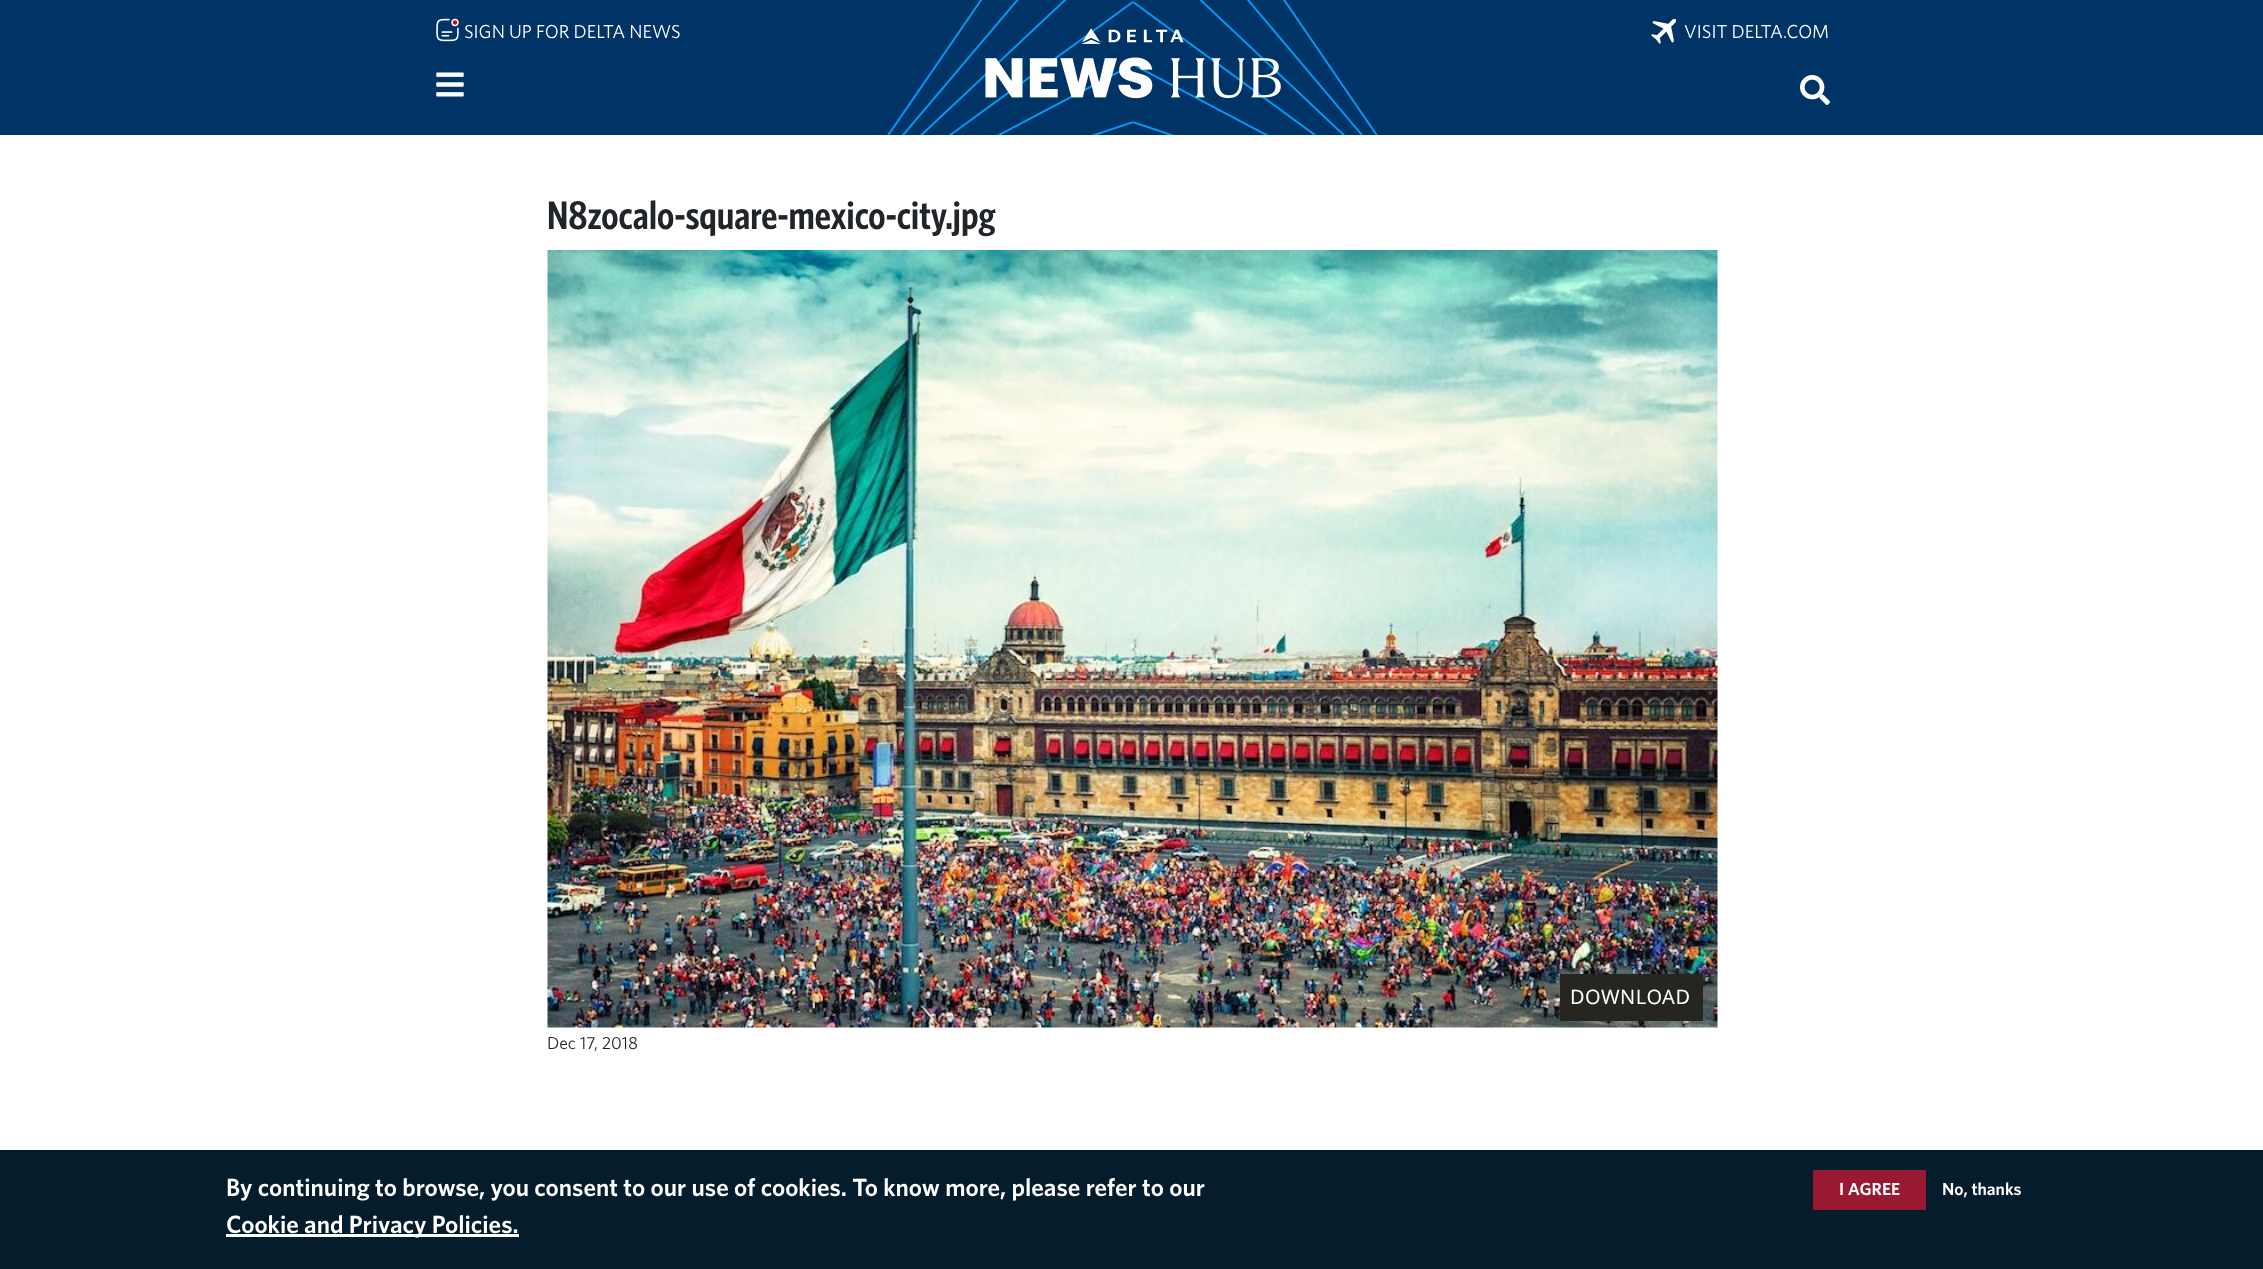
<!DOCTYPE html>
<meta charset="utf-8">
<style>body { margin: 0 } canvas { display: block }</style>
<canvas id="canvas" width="2263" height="1269"></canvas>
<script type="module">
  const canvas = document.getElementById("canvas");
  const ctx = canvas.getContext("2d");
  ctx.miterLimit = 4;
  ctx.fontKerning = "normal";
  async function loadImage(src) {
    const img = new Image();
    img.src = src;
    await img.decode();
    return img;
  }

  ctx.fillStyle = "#ffffff";
  ctx.fillRect(0, 0, 2263, 1269);
  ctx.fillStyle = "#003366";
  ctx.fillRect(0, 0, 2263, 135);
  ctx.drawImage(await loadImage("img1.png"), 887, 0, 491, 135);
  ctx.drawImage(await loadImage("img2.png"), 436, 18, 23, 24);
  ctx.font = "18.75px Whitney";
  ctx.fillStyle = "#ffffff";
  ctx.fillText("SIGN UP FOR DELTA NEWS", 464, 38);
  ctx.drawImage(await loadImage("img3.png"), 1651, 19, 25, 25);
  ctx.fillText("VISIT DELTA.COM", 1684, 38);
  ctx.drawImage(await loadImage("img4.png"), 436, 72, 28, 25);
  ctx.drawImage(await loadImage("img5.png"), 1800, 75, 30, 30);
  ctx.font = "600 40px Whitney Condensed";
  ctx.fillStyle = "#212529";
  ctx.fillText("N8zocalo-square-mexico-city.jpg", 547, 229);
  ctx.drawImage(await loadImage("img6.png"), 547, 250, 1171, 778);
  ctx.fillStyle = "#27251f";
  ctx.fillRect(1560, 974, 143, 47);
  ctx.letterSpacing = "0.5px";
  ctx.font = "20px Noto Sans";
  ctx.fillStyle = "#ffffff";
  ctx.fillText("DOWNLOAD", 1570, 1004);
  ctx.letterSpacing = "0px";
  ctx.font = "17.5px Whitney";
  ctx.fillStyle = "#212529";
  ctx.fillText("Dec 17, 2018", 547, 1049);
  ctx.fillStyle = "#041c2c";
  ctx.fillRect(0, 1150, 2263, 119);
  ctx.font = "600 25px Whitney";
  ctx.fillStyle = "#ffffff";
  ctx.fillText("By continuing to browse, you consent to our use of cookies. To know more, please refer to our", 226, 1196);
  ctx.fillRect(226, 1234, 293, 3);
  ctx.fillText("Cookie and Privacy Policies.", 226, 1233);
  ctx.fillStyle = "#991933";
  ctx.fillRect(1813, 1170, 113, 40);
  ctx.font = "600 17.5px Whitney";
  ctx.fillStyle = "#ffffff";
  ctx.fillText("I AGREE", 1839, 1195);
  ctx.fillText("No, thanks", 1942, 1195);
</script>
